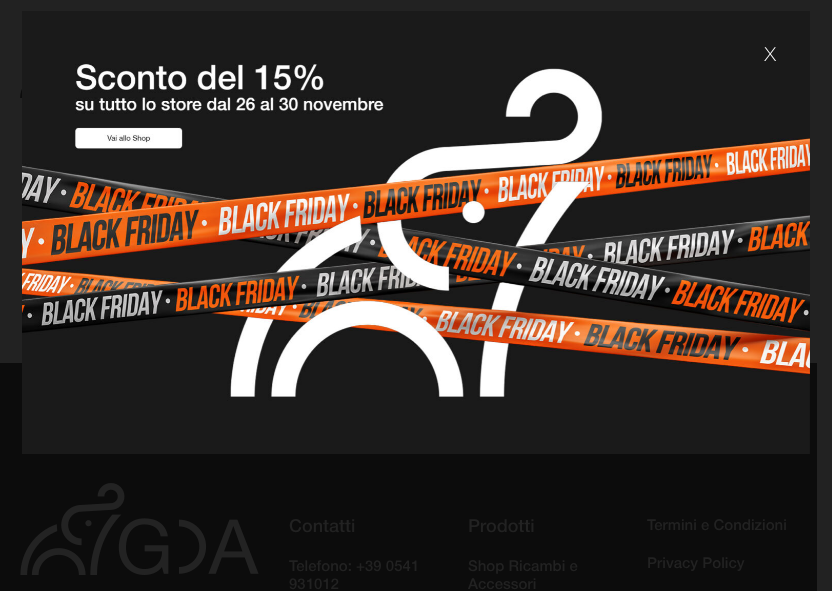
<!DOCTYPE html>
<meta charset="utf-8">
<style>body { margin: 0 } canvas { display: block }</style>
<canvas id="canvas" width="832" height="591"></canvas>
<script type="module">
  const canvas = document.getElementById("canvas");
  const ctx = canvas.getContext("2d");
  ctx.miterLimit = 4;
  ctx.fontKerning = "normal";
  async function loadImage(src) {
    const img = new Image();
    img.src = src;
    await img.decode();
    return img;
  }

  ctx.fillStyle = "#222222";
  ctx.fillRect(0, 0, 832, 591);
  ctx.fillStyle = "#0c0c0c";
  ctx.fillRect(0, 363, 817, 228);
  ctx.drawImage(await loadImage("img1.png"), 22, 11, 788, 443);
  ctx.font = "bold 19px Montserrat";
  ctx.fillStyle = "#ffffff";
  ctx.fillText("X", 764, 61);
  ctx.drawImage(await loadImage("img2.png"), 20, 89, 2, 9);
  ctx.drawImage(await loadImage("img3.png"), 20, 483, 239, 92);
  ctx.font = "500 18px Helvetica Neue";
  ctx.fillStyle = "#222222";
  ctx.fillText("Contatti", 289, 532);
  ctx.font = "500 15px Helvetica Neue";
  ctx.fillText("Telefono: +39 0541", 289, 571);
  ctx.fillText("931012", 289, 589);
  ctx.font = "500 18px Helvetica Neue";
  ctx.fillText("Prodotti", 468, 532);
  ctx.font = "500 15px Helvetica Neue";
  ctx.fillText("Shop Ricambi e", 468, 571);
  ctx.fillText("Accessori", 468, 589);
  ctx.fillText("Termini e Condizioni", 647, 530);
  ctx.fillText("Privacy Policy", 647, 568);
</script>
